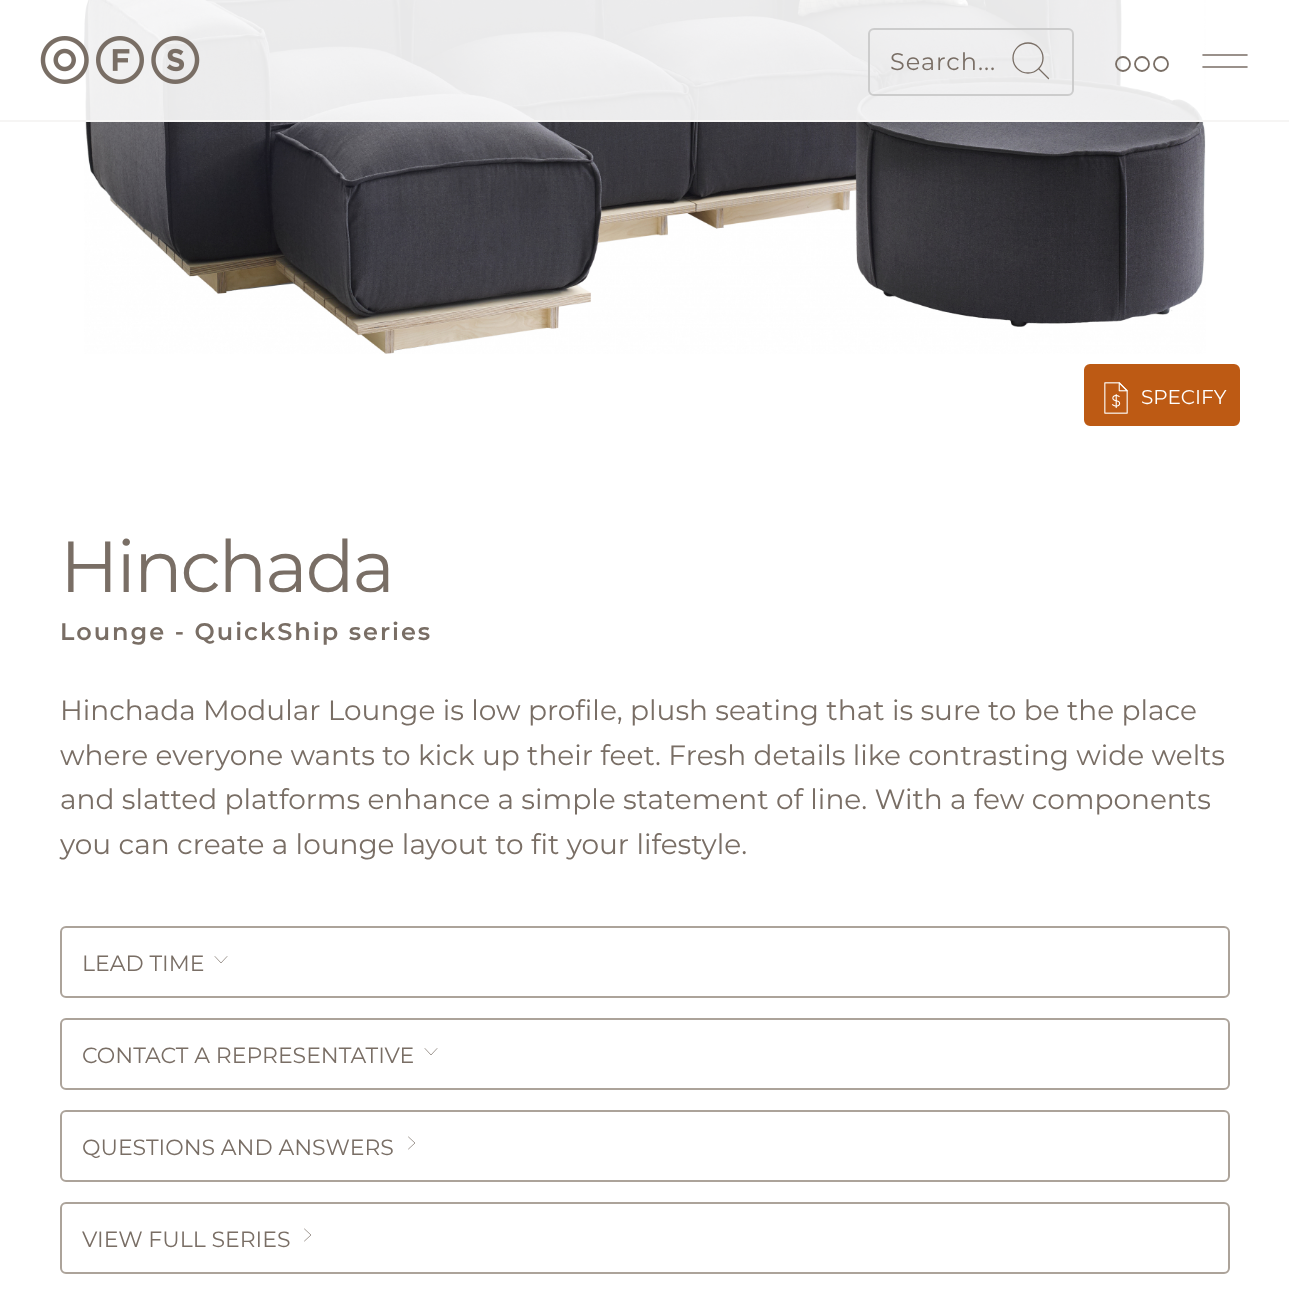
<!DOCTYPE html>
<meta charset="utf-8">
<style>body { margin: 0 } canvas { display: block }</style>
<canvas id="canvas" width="1289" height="1293"></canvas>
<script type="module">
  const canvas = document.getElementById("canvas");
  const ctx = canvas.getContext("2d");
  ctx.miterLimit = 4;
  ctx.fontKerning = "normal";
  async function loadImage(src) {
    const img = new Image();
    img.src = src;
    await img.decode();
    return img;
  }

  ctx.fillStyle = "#ffffff";
  ctx.fillRect(0, 0, 1289, 1293);
  ctx.drawImage(await loadImage("img2.png"), 84, 0, 1122, 354);
  ctx.fillStyle = "rgba(255, 255, 255, 0.9)";
  ctx.fillRect(84, 0, 1120, 120);
  ctx.fillStyle = "#f6f5f4";
  ctx.fillRect(0, 120, 1289, 2);
  ctx.drawImage(await loadImage("img1.png"), 40, 36, 160, 48);
  ctx.beginPath();
  ctx.roundRect(869, 29, 204, 66, 5);
  ctx.strokeStyle = "#cccccc";
  ctx.lineWidth = 2;
  ctx.stroke();
  ctx.letterSpacing = "1px";
  ctx.font = "24px Montserrat";
  ctx.fillStyle = "#796e65";
  ctx.fillText("Search...", 890, 70);
  ctx.beginPath();
  ctx.arc(1028, 58, 15, 0, Math.PI * 2);
  ctx.strokeStyle = "#796e65";
  ctx.lineWidth = 1.3;
  ctx.stroke();
  ctx.beginPath();
  ctx.moveTo(1038.5, 68.5);
  ctx.lineTo(1048.5, 78.5);
  ctx.lineCap = "round";
  ctx.stroke();
  ctx.beginPath();
  ctx.arc(1123, 64, 7, 0, Math.PI * 2);
  ctx.lineWidth = 1.8;
  ctx.stroke();
  ctx.beginPath();
  ctx.arc(1142, 64, 7, 0, Math.PI * 2);
  ctx.stroke();
  ctx.beginPath();
  ctx.arc(1161, 64, 7, 0, Math.PI * 2);
  ctx.stroke();
  ctx.beginPath();
  ctx.moveTo(1203, 55);
  ctx.lineTo(1247, 55);
  ctx.moveTo(1203, 67);
  ctx.lineTo(1247, 67);
  ctx.lineWidth = 1.6;
  ctx.stroke();
  ctx.fillStyle = "#bd5a14";
  ctx.beginPath();
  ctx.roundRect(1085, 365, 154, 60, 5);
  ctx.fill();
  ctx.strokeStyle = "#bd5a14";
  ctx.lineWidth = 2;
  ctx.stroke();
  ctx.drawImage(await loadImage("img3.png"), 1104, 382, 24, 32);
  ctx.letterSpacing = "0px";
  ctx.font = "20px Montserrat";
  ctx.fillStyle = "#ffffff";
  ctx.fillText("SPECIFY", 1141, 404);
  ctx.letterSpacing = "-2px";
  ctx.font = "72px Montserrat";
  ctx.fillStyle = "#796e65";
  ctx.fillText("Hinchada", 60, 592);
  ctx.letterSpacing = "2px";
  ctx.font = "600 24px Montserrat";
  ctx.fillText("Lounge - QuickShip series", 60, 640);
  ctx.letterSpacing = "0px";
  ctx.font = "28px Montserrat";
  ctx.fillText("Hinchada Modular Lounge is low profile, plush seating that is sure to be the place", 60, 720);
  ctx.fillText("where everyone wants to kick up their feet. Fresh details like contrasting wide welts", 60, 765);
  ctx.fillText("and slatted platforms enhance a simple statement of line. With a few components", 60, 809);
  ctx.fillText("you can create a lounge layout to fit your lifestyle.", 60, 854);
  ctx.beginPath();
  ctx.roundRect(61, 927, 1168, 70, 5);
  ctx.strokeStyle = "#aca39a";
  ctx.stroke();
  ctx.font = "22px Montserrat";
  ctx.fillText("LEAD TIME", 82, 971);
  ctx.beginPath();
  ctx.moveTo(215, 956.5);
  ctx.lineTo(221, 963);
  ctx.lineTo(227, 956.5);
  ctx.strokeStyle = "#796e65";
  ctx.lineWidth = 0.7;
  ctx.lineJoin = "round";
  ctx.stroke();
  ctx.beginPath();
  ctx.roundRect(61, 1019, 1168, 70, 5);
  ctx.strokeStyle = "#aca39a";
  ctx.lineWidth = 2;
  ctx.lineJoin = "miter";
  ctx.stroke();
  ctx.fillText("CONTACT A REPRESENTATIVE", 82, 1063);
  ctx.beginPath();
  ctx.moveTo(425, 1048.5);
  ctx.lineTo(431, 1055);
  ctx.lineTo(437, 1048.5);
  ctx.strokeStyle = "#796e65";
  ctx.lineWidth = 0.7;
  ctx.lineJoin = "round";
  ctx.stroke();
  ctx.beginPath();
  ctx.roundRect(61, 1111, 1168, 70, 5);
  ctx.strokeStyle = "#aca39a";
  ctx.lineWidth = 2;
  ctx.lineJoin = "miter";
  ctx.stroke();
  ctx.fillText("QUESTIONS AND ANSWERS", 82, 1155);
  ctx.beginPath();
  ctx.moveTo(408.5, 1149);
  ctx.lineTo(415, 1143);
  ctx.lineTo(408.5, 1137);
  ctx.strokeStyle = "#796e65";
  ctx.lineWidth = 0.7;
  ctx.lineJoin = "round";
  ctx.stroke();
  ctx.beginPath();
  ctx.roundRect(61, 1203, 1168, 70, 5);
  ctx.strokeStyle = "#aca39a";
  ctx.lineWidth = 2;
  ctx.lineJoin = "miter";
  ctx.stroke();
  ctx.fillText("VIEW FULL SERIES", 82, 1247);
  ctx.beginPath();
  ctx.moveTo(304.5, 1241);
  ctx.lineTo(311, 1235);
  ctx.lineTo(304.5, 1229);
  ctx.strokeStyle = "#796e65";
  ctx.lineWidth = 0.7;
  ctx.lineJoin = "round";
  ctx.stroke();
</script>
